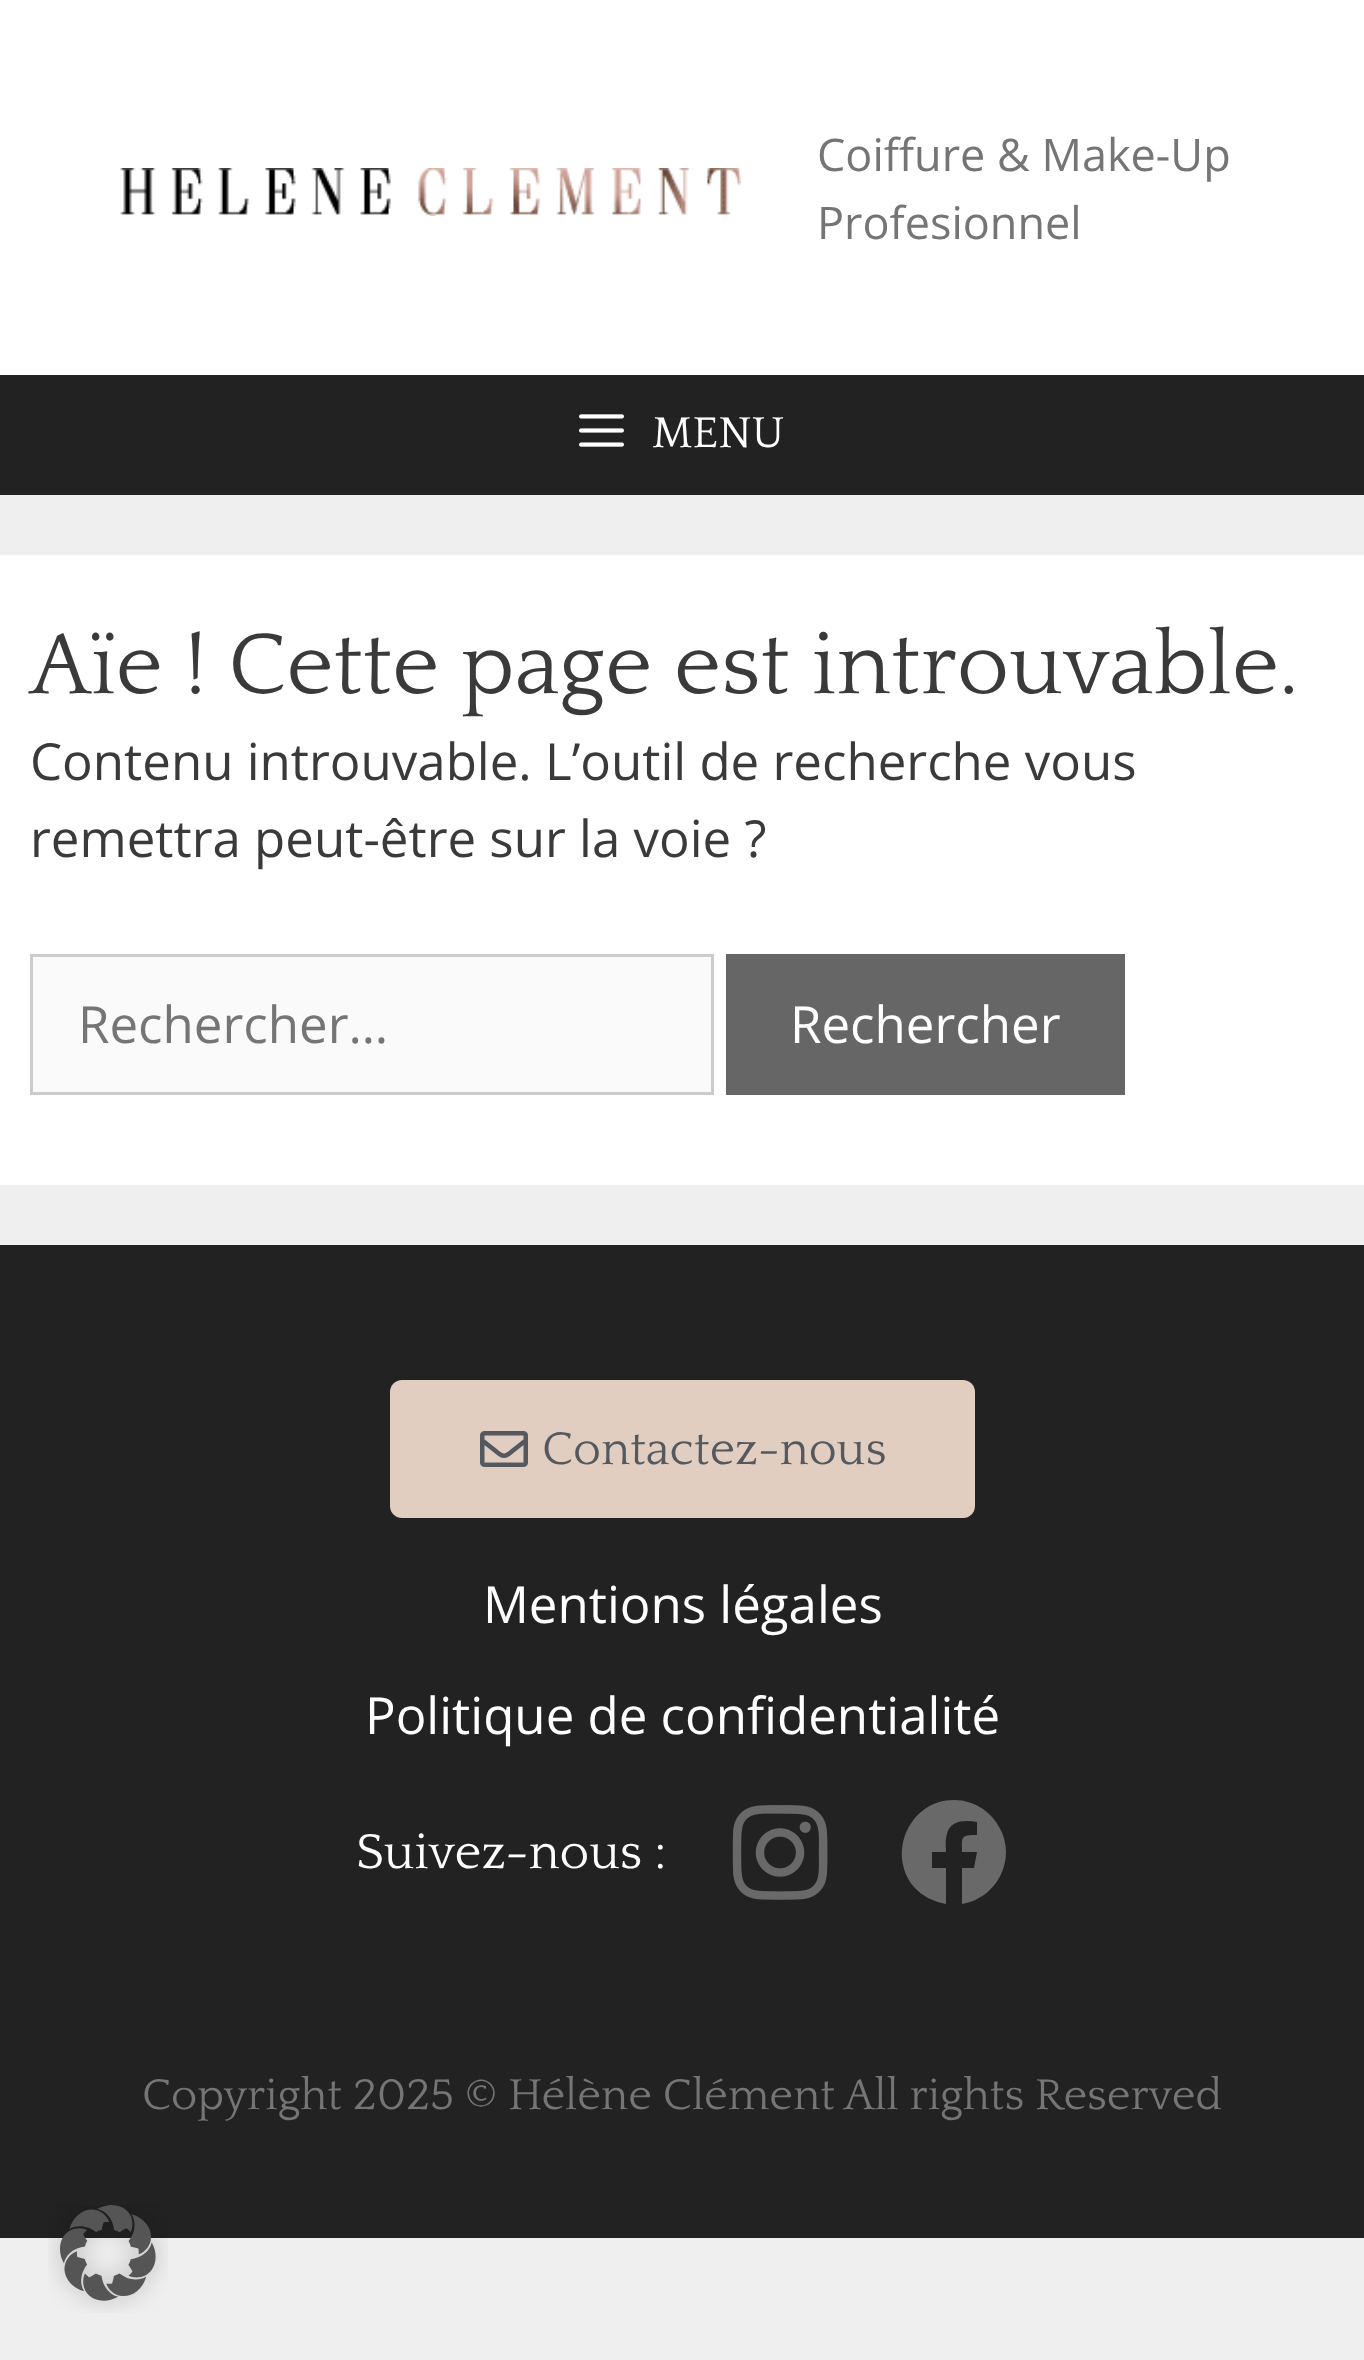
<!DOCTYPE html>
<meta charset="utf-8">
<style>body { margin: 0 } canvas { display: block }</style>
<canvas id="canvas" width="1364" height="2360"></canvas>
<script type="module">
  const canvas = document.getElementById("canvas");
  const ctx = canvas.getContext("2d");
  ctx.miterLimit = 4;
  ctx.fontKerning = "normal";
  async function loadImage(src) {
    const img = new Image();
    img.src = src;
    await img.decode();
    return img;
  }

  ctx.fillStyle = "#efefef";
  ctx.fillRect(0, 0, 1364, 2360);
  ctx.fillStyle = "#ffffff";
  ctx.fillRect(0, 0, 1364, 375);
  ctx.drawImage(await loadImage("img1.png"), 120, 168, 621, 48);
  ctx.font = "45px Open Sans";
  ctx.fillStyle = "#757575";
  ctx.fillText("Coiffure & Make-Up", 817, 171);
  ctx.fillText("Profesionnel", 817, 239);
  ctx.fillStyle = "#222222";
  ctx.fillRect(0, 375, 1364, 120);
  ctx.drawImage(await loadImage("img2.png"), 579, 414, 45, 33);
  ctx.font = "45px Quattrocento";
  ctx.fillStyle = "#ffffff";
  ctx.fillText("MENU", 652, 447);
  ctx.fillRect(0, 555, 1364, 630);
  ctx.font = "90px Quattrocento";
  ctx.fillStyle = "#3a3a3a";
  ctx.fillText("Aïe ! Cette page est introuvable.", 30, 693);
  ctx.font = "51px Open Sans";
  ctx.fillText("Contenu introuvable. L’outil de recherche vous", 30, 780);
  ctx.fillText("remettra peut-être sur la voie ?", 30, 857);
  ctx.fillStyle = "#fafafa";
  ctx.beginPath();
  ctx.rect(31.5, 955.5, 681, 138);
  ctx.fill();
  ctx.strokeStyle = "#cccccc";
  ctx.lineWidth = 3;
  ctx.stroke();
  ctx.fillStyle = "#757575";
  ctx.fillText("Rechercher…", 78, 1043);
  ctx.fillStyle = "#666666";
  ctx.fillRect(726, 954, 399, 141);
  ctx.fillStyle = "#ffffff";
  ctx.fillText("Rechercher", 790, 1043);
  ctx.fillStyle = "#222222";
  ctx.fillRect(0, 1245, 1364, 993);
  ctx.fillStyle = "#e1cec0";
  ctx.beginPath();
  ctx.roundRect(390, 1380, 585, 138, 12);
  ctx.fill();
  ctx.drawImage(await loadImage("img3.png"), 480, 1431, 48, 36);
  ctx.font = "48px Quattrocento";
  ctx.fillStyle = "#54595f";
  ctx.fillText("Contactez-nous", 542, 1464);
  ctx.font = "51px Open Sans";
  ctx.fillStyle = "#ffffff";
  ctx.fillText("Mentions légales", 483, 1623);
  ctx.fillText("Politique de confidentialité", 365, 1734);
  ctx.font = "51px Quattrocento";
  ctx.fillText("Suivez-nous :", 356, 1868);
  ctx.drawImage(await loadImage("img4.png"), 732, 1805, 96, 95);
  ctx.fillStyle = "#696969";
  ctx.beginPath();
  ctx.moveTo(1006, 1852);
  ctx.bezierCurveTo(1006, 1878, 987, 1900, 962, 1904);
  ctx.lineTo(962, 1868);
  ctx.lineTo(974, 1868);
  ctx.lineTo(977, 1852);
  ctx.lineTo(962, 1852);
  ctx.bezierCurveTo(962, 1837, 960, 1835, 977, 1835);
  ctx.lineTo(977, 1822);
  ctx.bezierCurveTo(965, 1820, 950, 1820, 947, 1834);
  ctx.bezierCurveTo(945, 1840, 946, 1847, 946, 1852);
  ctx.lineTo(932, 1852);
  ctx.lineTo(932, 1868);
  ctx.lineTo(946, 1868);
  ctx.lineTo(946, 1904);
  ctx.bezierCurveTo(934, 1902, 922, 1896, 914, 1887);
  ctx.bezierCurveTo(886, 1853, 910, 1800, 954, 1800);
  ctx.bezierCurveTo(964, 1800, 974, 1803, 983, 1809);
  ctx.bezierCurveTo(997, 1819, 1006, 1835, 1006, 1852);
  ctx.closePath();
  ctx.fill();
  ctx.font = "45px Quattrocento";
  ctx.fillStyle = "#757575";
  ctx.fillText("Copyright 2025 © Hélène Clément All rights Reserved", 142, 2109);
  ctx.drawImage(await loadImage("img5.png"), 48, 2205, 120, 108);
</script>
